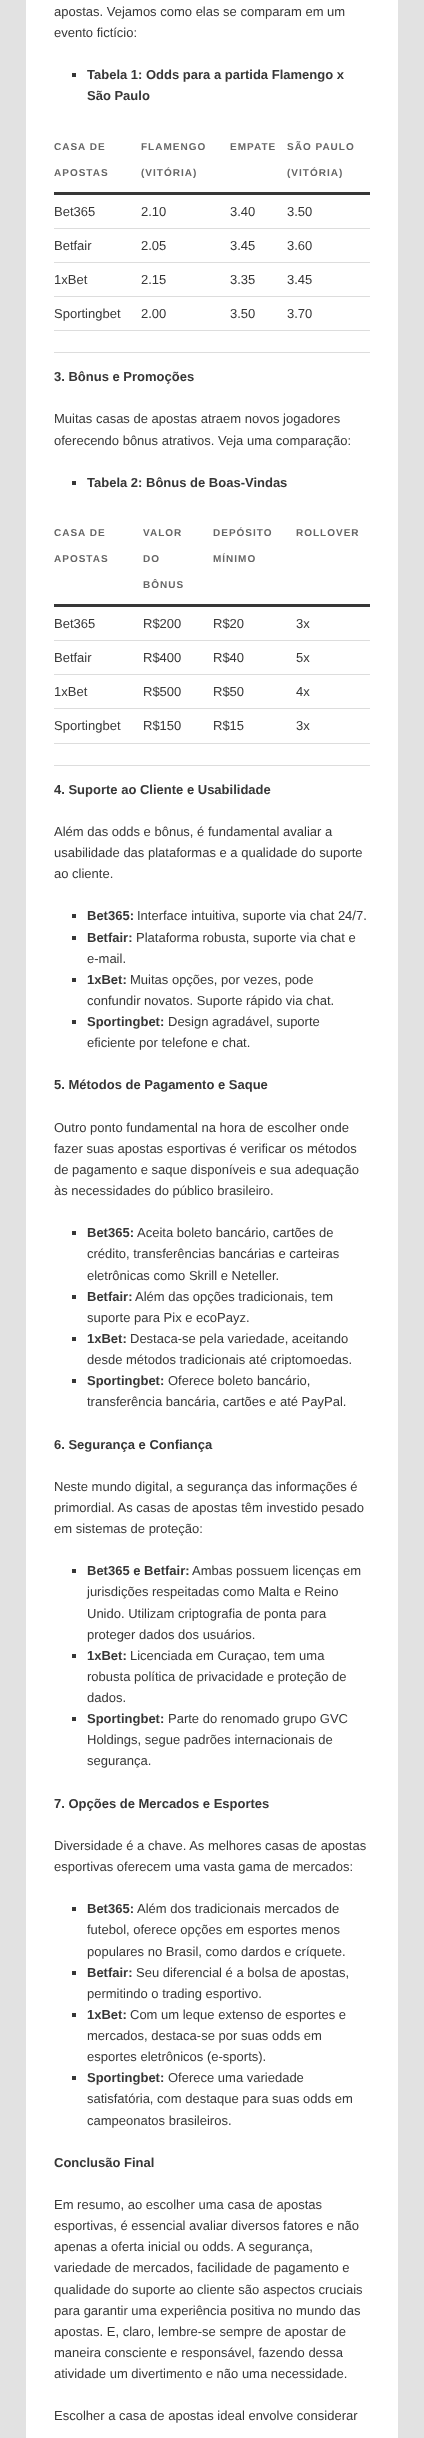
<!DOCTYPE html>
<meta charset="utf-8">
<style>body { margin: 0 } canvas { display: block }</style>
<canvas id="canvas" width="424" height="2438"></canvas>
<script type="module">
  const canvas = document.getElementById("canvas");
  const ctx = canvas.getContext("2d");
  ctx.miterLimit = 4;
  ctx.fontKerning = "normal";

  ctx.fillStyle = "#e2e2e2";
  ctx.fillRect(0, 0, 424, 2438);
  ctx.fillStyle = "#ffffff";
  ctx.fillRect(26, 0, 372, 2438);
  ctx.font = "13px Liberation Sans";
  ctx.fillStyle = "#373737";
  ctx.fillText("apostas. Vejamos como elas se comparam em um", 54, 16);
  ctx.fillText("evento fictício:", 54, 37);
  ctx.fillRect(72, 73, 4, 4);
  ctx.font = "bold 13px Liberation Sans";
  ctx.fillText("Tabela 1: Odds para a partida Flamengo x", 87, 79);
  ctx.fillText("São Paulo", 87, 100);
  ctx.fillStyle = "#dddddd";
  ctx.fillRect(54, 352, 316, 1);
  ctx.fillRect(54, 330, 316, 1);
  ctx.fillStyle = "#373737";
  ctx.fillRect(54, 192, 316, 3);
  ctx.letterSpacing = "1px";
  ctx.font = "bold 10px Liberation Sans";
  ctx.fillStyle = "#666666";
  ctx.fillText("CASA DE", 54, 150);
  ctx.fillText("APOSTAS", 54, 176);
  ctx.fillText("FLAMENGO", 141, 150);
  ctx.fillText("(VITÓRIA)", 141, 176);
  ctx.fillText("EMPATE", 230, 150);
  ctx.fillText("SÃO PAULO", 287, 150);
  ctx.fillText("(VITÓRIA)", 287, 176);
  ctx.letterSpacing = "0px";
  ctx.font = "13px Liberation Sans";
  ctx.fillStyle = "#373737";
  ctx.fillText("Bet365", 54, 216);
  ctx.fillText("2.10", 141, 216);
  ctx.fillText("3.40", 230, 216);
  ctx.fillText("3.50", 287, 216);
  ctx.fillText("Betfair", 54, 250);
  ctx.fillText("2.05", 141, 250);
  ctx.fillText("3.45", 230, 250);
  ctx.fillStyle = "#dddddd";
  ctx.fillRect(54, 228, 316, 1);
  ctx.fillStyle = "#373737";
  ctx.fillText("3.60", 287, 250);
  ctx.fillText("1xBet", 54, 284);
  ctx.fillText("2.15", 141, 284);
  ctx.fillText("3.35", 230, 284);
  ctx.fillStyle = "#dddddd";
  ctx.fillRect(54, 262, 316, 1);
  ctx.fillStyle = "#373737";
  ctx.fillText("3.45", 287, 284);
  ctx.fillText("Sportingbet", 54, 318);
  ctx.fillText("2.00", 141, 318);
  ctx.fillText("3.50", 230, 318);
  ctx.fillStyle = "#dddddd";
  ctx.fillRect(54, 296, 316, 1);
  ctx.fillStyle = "#373737";
  ctx.fillText("3.70", 287, 318);
  ctx.font = "bold 13px Liberation Sans";
  ctx.fillText("3. Bônus e Promoções", 54, 381);
  ctx.font = "13px Liberation Sans";
  ctx.fillText("Muitas casas de apostas atraem novos jogadores", 54, 423);
  ctx.fillText("oferecendo bônus atrativos. Veja uma comparação:", 54, 445);
  ctx.fillRect(72, 481, 4, 4);
  ctx.font = "bold 13px Liberation Sans";
  ctx.fillText("Tabela 2: Bônus de Boas-Vindas", 87, 487);
  ctx.fillStyle = "#dddddd";
  ctx.fillRect(54, 765, 316, 1);
  ctx.fillRect(54, 743, 316, 1);
  ctx.fillStyle = "#373737";
  ctx.fillRect(54, 604, 316, 3);
  ctx.letterSpacing = "1px";
  ctx.font = "bold 10px Liberation Sans";
  ctx.fillStyle = "#666666";
  ctx.fillText("CASA DE", 54, 536);
  ctx.fillText("APOSTAS", 54, 562);
  ctx.fillText("VALOR", 143, 536);
  ctx.fillText("DO", 143, 562);
  ctx.fillText("BÔNUS", 143, 588);
  ctx.fillText("DEPÓSITO", 213, 536);
  ctx.fillText("MÍNIMO", 213, 562);
  ctx.fillText("ROLLOVER", 296, 536);
  ctx.letterSpacing = "0px";
  ctx.font = "13px Liberation Sans";
  ctx.fillStyle = "#373737";
  ctx.fillText("Bet365", 54, 628);
  ctx.fillText("R$200", 143, 628);
  ctx.fillText("R$20", 213, 628);
  ctx.fillText("3x", 296, 628);
  ctx.fillText("Betfair", 54, 662);
  ctx.fillText("R$400", 143, 662);
  ctx.fillText("R$40", 213, 662);
  ctx.fillStyle = "#dddddd";
  ctx.fillRect(54, 640, 316, 1);
  ctx.fillStyle = "#373737";
  ctx.fillText("5x", 296, 662);
  ctx.fillText("1xBet", 54, 696);
  ctx.fillText("R$500", 143, 696);
  ctx.fillText("R$50", 213, 696);
  ctx.fillStyle = "#dddddd";
  ctx.fillRect(54, 674, 316, 1);
  ctx.fillStyle = "#373737";
  ctx.fillText("4x", 296, 696);
  ctx.fillText("Sportingbet", 54, 730);
  ctx.fillText("R$150", 143, 730);
  ctx.fillText("R$15", 213, 730);
  ctx.fillStyle = "#dddddd";
  ctx.fillRect(54, 708, 316, 1);
  ctx.fillStyle = "#373737";
  ctx.fillText("3x", 296, 730);
  ctx.font = "bold 13px Liberation Sans";
  ctx.fillText("4. Suporte ao Cliente e Usabilidade", 54, 794);
  ctx.font = "13px Liberation Sans";
  ctx.fillText("Além das odds e bônus, é fundamental avaliar a", 54, 836);
  ctx.fillText("usabilidade das plataformas e a qualidade do suporte", 54, 857);
  ctx.fillText("ao cliente.", 54, 878);
  ctx.fillRect(72, 914, 4, 4);
  ctx.font = "bold 13px Liberation Sans";
  ctx.fillText("Bet365:", 87, 920);
  ctx.font = "13px Liberation Sans";
  ctx.fillText("Interface intuitiva, suporte via chat 24/7.", 137, 920);
  ctx.fillRect(72, 936, 4, 4);
  ctx.font = "bold 13px Liberation Sans";
  ctx.fillText("Betfair:", 87, 942);
  ctx.font = "13px Liberation Sans";
  ctx.fillText("Plataforma robusta, suporte via chat e", 136, 942);
  ctx.fillText("e-mail.", 87, 963);
  ctx.fillRect(72, 978, 4, 4);
  ctx.font = "bold 13px Liberation Sans";
  ctx.fillText("1xBet:", 87, 984);
  ctx.font = "13px Liberation Sans";
  ctx.fillText("Muitas opções, por vezes, pode", 130, 984);
  ctx.fillText("confundir novatos. Suporte rápido via chat.", 87, 1005);
  ctx.fillRect(72, 1020, 4, 4);
  ctx.font = "bold 13px Liberation Sans";
  ctx.fillText("Sportingbet:", 87, 1026);
  ctx.font = "13px Liberation Sans";
  ctx.fillText("Design agradável, suporte", 168, 1026);
  ctx.fillText("eficiente por telefone e chat.", 87, 1047);
  ctx.font = "bold 13px Liberation Sans";
  ctx.fillText("5. Métodos de Pagamento e Saque", 54, 1089);
  ctx.font = "13px Liberation Sans";
  ctx.fillText("Outro ponto fundamental na hora de escolher onde", 54, 1132);
  ctx.fillText("fazer suas apostas esportivas é verificar os métodos", 54, 1153);
  ctx.fillText("de pagamento e saque disponíveis e sua adequação", 54, 1174);
  ctx.fillText("às necessidades do público brasileiro.", 54, 1195);
  ctx.fillRect(72, 1231, 4, 4);
  ctx.font = "bold 13px Liberation Sans";
  ctx.fillText("Bet365:", 87, 1237);
  ctx.font = "13px Liberation Sans";
  ctx.fillText("Aceita boleto bancário, cartões de", 137, 1237);
  ctx.fillText("crédito, transferências bancárias e carteiras", 87, 1258);
  ctx.fillText("eletrônicas como Skrill e Neteller.", 87, 1280);
  ctx.fillRect(72, 1295, 4, 4);
  ctx.font = "bold 13px Liberation Sans";
  ctx.fillText("Betfair:", 87, 1301);
  ctx.font = "13px Liberation Sans";
  ctx.fillText("Além das opções tradicionais, tem", 135, 1301);
  ctx.fillText("suporte para Pix e ecoPayz.", 87, 1322);
  ctx.fillRect(72, 1337, 4, 4);
  ctx.font = "bold 13px Liberation Sans";
  ctx.fillText("1xBet:", 87, 1343);
  ctx.font = "13px Liberation Sans";
  ctx.fillText("Destaca-se pela variedade, aceitando", 130, 1343);
  ctx.fillText("desde métodos tradicionais até criptomoedas.", 87, 1364);
  ctx.fillRect(72, 1379, 4, 4);
  ctx.font = "bold 13px Liberation Sans";
  ctx.fillText("Sportingbet:", 87, 1385);
  ctx.font = "13px Liberation Sans";
  ctx.fillText("Oferece boleto bancário,", 168, 1385);
  ctx.fillText("transferência bancária, cartões e até PayPal.", 87, 1406);
  ctx.font = "bold 13px Liberation Sans";
  ctx.fillText("6. Segurança e Confiança", 54, 1449);
  ctx.font = "13px Liberation Sans";
  ctx.fillText("Neste mundo digital, a segurança das informações é", 54, 1491);
  ctx.fillText("primordial. As casas de apostas têm investido pesado", 54, 1512);
  ctx.fillText("em sistemas de proteção:", 54, 1533);
  ctx.fillRect(72, 1569, 4, 4);
  ctx.font = "bold 13px Liberation Sans";
  ctx.fillText("Bet365 e Betfair:", 87, 1575);
  ctx.font = "13px Liberation Sans";
  ctx.fillText("Ambas possuem licenças em", 192, 1575);
  ctx.fillText("jurisdições respeitadas como Malta e Reino", 87, 1596);
  ctx.fillText("Unido. Utilizam criptografia de ponta para", 87, 1618);
  ctx.fillText("proteger dados dos usuários.", 87, 1639);
  ctx.fillRect(72, 1654, 4, 4);
  ctx.font = "bold 13px Liberation Sans";
  ctx.fillText("1xBet:", 87, 1660);
  ctx.font = "13px Liberation Sans";
  ctx.fillText("Licenciada em Curaçao, tem uma", 130, 1660);
  ctx.fillText("robusta política de privacidade e proteção de", 87, 1681);
  ctx.fillText("dados.", 87, 1702);
  ctx.fillRect(72, 1717, 4, 4);
  ctx.font = "bold 13px Liberation Sans";
  ctx.fillText("Sportingbet:", 87, 1723);
  ctx.font = "13px Liberation Sans";
  ctx.fillText("Parte do renomado grupo GVC", 168, 1723);
  ctx.fillText("Holdings, segue padrões internacionais de", 87, 1744);
  ctx.fillText("segurança.", 87, 1765);
  ctx.font = "bold 13px Liberation Sans";
  ctx.fillText("7. Opções de Mercados e Esportes", 54, 1808);
  ctx.font = "13px Liberation Sans";
  ctx.fillText("Diversidade é a chave. As melhores casas de apostas", 54, 1850);
  ctx.fillText("esportivas oferecem uma vasta gama de mercados:", 54, 1871);
  ctx.fillRect(72, 1907, 4, 4);
  ctx.font = "bold 13px Liberation Sans";
  ctx.fillText("Bet365:", 87, 1913);
  ctx.font = "13px Liberation Sans";
  ctx.fillText("Além dos tradicionais mercados de", 137, 1913);
  ctx.fillText("futebol, oferece opções em esportes menos", 87, 1934);
  ctx.fillText("populares no Brasil, como dardos e críquete.", 87, 1956);
  ctx.fillRect(72, 1971, 4, 4);
  ctx.font = "bold 13px Liberation Sans";
  ctx.fillText("Betfair:", 87, 1977);
  ctx.font = "13px Liberation Sans";
  ctx.fillText("Seu diferencial é a bolsa de apostas,", 136, 1977);
  ctx.fillText("permitindo o trading esportivo.", 87, 1998);
  ctx.fillRect(72, 2013, 4, 4);
  ctx.font = "bold 13px Liberation Sans";
  ctx.fillText("1xBet:", 87, 2019);
  ctx.font = "13px Liberation Sans";
  ctx.fillText("Com um leque extenso de esportes e", 130, 2019);
  ctx.fillText("mercados, destaca-se por suas odds em", 87, 2040);
  ctx.fillText("esportes eletrônicos (e-sports).", 87, 2061);
  ctx.fillRect(72, 2076, 4, 4);
  ctx.font = "bold 13px Liberation Sans";
  ctx.fillText("Sportingbet:", 87, 2082);
  ctx.font = "13px Liberation Sans";
  ctx.fillText("Oferece uma variedade", 168, 2082);
  ctx.fillText("satisfatória, com destaque para suas odds em", 87, 2103);
  ctx.fillText("campeonatos brasileiros.", 87, 2125);
  ctx.font = "bold 13px Liberation Sans";
  ctx.fillText("Conclusão Final", 54, 2167);
  ctx.font = "13px Liberation Sans";
  ctx.fillText("Em resumo, ao escolher uma casa de apostas", 54, 2209);
  ctx.fillText("esportivas, é essencial avaliar diversos fatores e não", 54, 2230);
  ctx.fillText("apenas a oferta inicial ou odds. A segurança,", 54, 2251);
  ctx.fillText("variedade de mercados, facilidade de pagamento e", 54, 2272);
  ctx.fillText("qualidade do suporte ao cliente são aspectos cruciais", 54, 2294);
  ctx.fillText("para garantir uma experiência positiva no mundo das", 54, 2315);
  ctx.fillText("apostas. E, claro, lembre-se sempre de apostar de", 54, 2336);
  ctx.fillText("maneira consciente e responsável, fazendo dessa", 54, 2357);
  ctx.fillText("atividade um divertimento e não uma necessidade.", 54, 2378);
  ctx.fillText("Escolher a casa de apostas ideal envolve considerar", 54, 2420);
</script>
